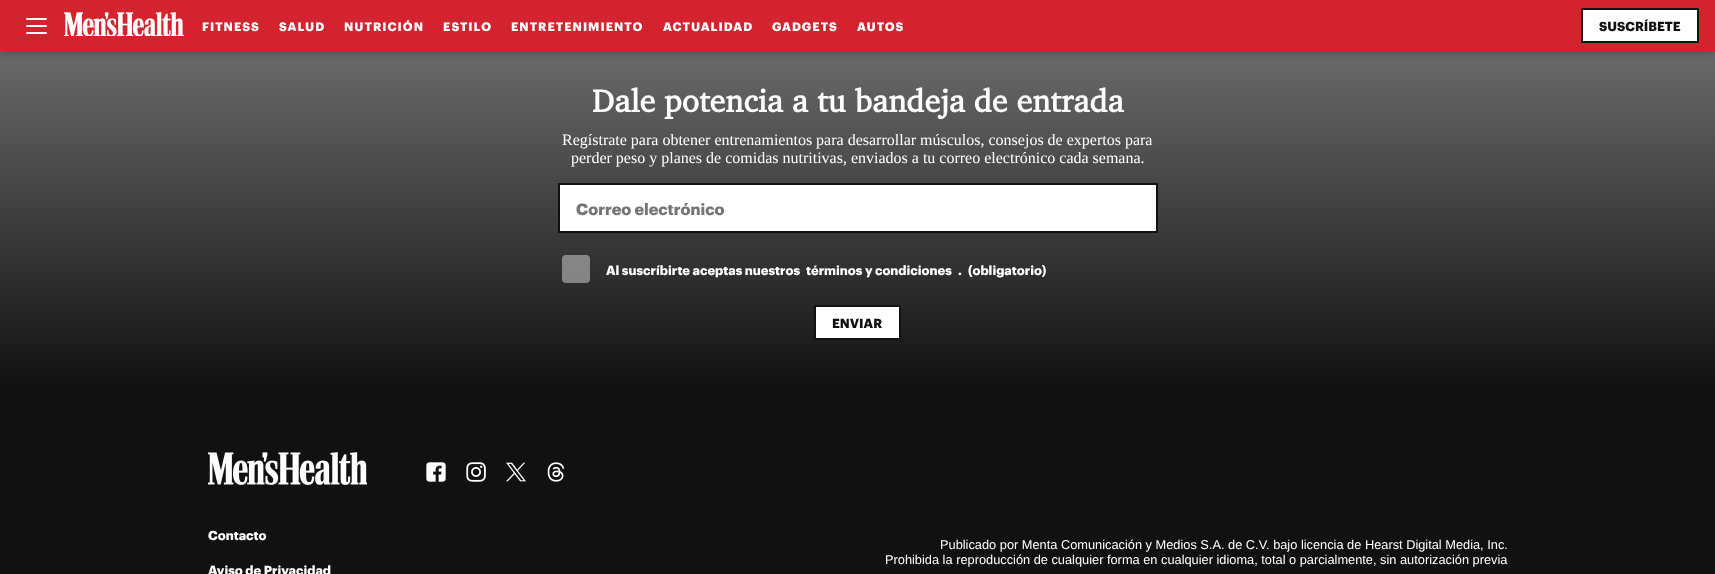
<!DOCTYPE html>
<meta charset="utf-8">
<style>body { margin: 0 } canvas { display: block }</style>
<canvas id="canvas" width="1715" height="574"></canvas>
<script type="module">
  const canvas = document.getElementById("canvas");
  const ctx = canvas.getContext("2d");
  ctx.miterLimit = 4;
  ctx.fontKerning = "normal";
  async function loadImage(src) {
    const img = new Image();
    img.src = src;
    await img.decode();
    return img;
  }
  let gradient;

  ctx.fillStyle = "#ffffff";
  ctx.fillRect(0, 0, 1715, 574);
  gradient = ctx.createLinearGradient(858, 49, 858, 388);
  gradient.addColorStop(0, "#6a6a6a");
  gradient.addColorStop(1, "#111111");
  ctx.fillStyle = gradient;
  ctx.fillRect(0, 51, 1715, 337);
  ctx.fillStyle = "rgba(0, 0, 0, 0.2)";
  ctx.filter = "blur(3px)";
  ctx.beginPath();
  ctx.rect(0, 3, 1715, 51);
  ctx.fill();
  ctx.filter = "none";
  ctx.fillStyle = "#d2232e";
  ctx.fillRect(0, 0, 1715, 51);
  ctx.fillStyle = "#ffffff";
  ctx.beginPath();
  ctx.roundRect(26, 25, 21, 2, 1);
  ctx.fill();
  ctx.beginPath();
  ctx.roundRect(26, 18, 21, 2, 1);
  ctx.fill();
  ctx.beginPath();
  ctx.roundRect(26, 32, 21, 2, 1);
  ctx.fill();
  ctx.drawImage(await loadImage("img1.png"), 64, 12, 120, 24);
  ctx.letterSpacing = "1px";
  ctx.font = "bold 12px Graphik";
  ctx.fillText("FITNESS", 202, 31);
  ctx.fillText("SALUD", 279, 31);
  ctx.fillText("NUTRICIÓN", 344, 31);
  ctx.fillText("ESTILO", 443, 31);
  ctx.fillText("ENTRETENIMIENTO", 511, 31);
  ctx.fillText("ACTUALIDAD", 663, 31);
  ctx.fillText("GADGETS", 772, 31);
  ctx.fillText("AUTOS", 857, 31);
  ctx.beginPath();
  ctx.rect(1582, 9, 116, 33);
  ctx.fill();
  ctx.strokeStyle = "#111111";
  ctx.lineWidth = 2;
  ctx.stroke();
  ctx.letterSpacing = "0px";
  ctx.font = "bold 12.8px Graphik";
  ctx.fillStyle = "#111111";
  ctx.fillText("SUSCRÍBETE", 1599, 31);
  ctx.font = "bold 32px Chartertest";
  ctx.fillStyle = "#ffffff";
  ctx.fillText("Dale potencia a tu bandeja de entrada", 592, 112);
  ctx.font = "16px Liberation Serif";
  ctx.fillText("Regístrate para obtener entrenamientos para desarrollar músculos, consejos de expertos para", 562, 145);
  ctx.fillText("perder peso y planes de comidas nutritivas, enviados a tu correo electrónico cada semana.", 571, 163);
  ctx.beginPath();
  ctx.rect(559, 184, 598, 48);
  ctx.fill();
  ctx.stroke();
  ctx.font = "bold 16px Graphik";
  ctx.fillStyle = "#757575";
  ctx.fillText("Correo electrónico", 576, 215);
  ctx.fillStyle = "rgba(217, 217, 217, 0.5)";
  ctx.beginPath();
  ctx.roundRect(562, 255, 28, 28, 4);
  ctx.fill();
  ctx.font = "bold 12.8px Graphik";
  ctx.fillStyle = "#ffffff";
  ctx.fillText("Al suscríbirte aceptas nuestros", 606, 275);
  ctx.fillText("términos y condiciones", 806, 275);
  ctx.fillText(".", 958, 275);
  ctx.fillText("(obligatorio)", 968, 275);
  ctx.beginPath();
  ctx.rect(815, 306, 85, 33);
  ctx.fill();
  ctx.stroke();
  ctx.fillStyle = "#111111";
  ctx.fillText("ENVIAR", 832, 328);
  ctx.fillRect(0, 388, 1715, 186);
  ctx.drawImage(await loadImage("img2.png"), 208, 452, 159, 33);
  ctx.drawImage(await loadImage("img3.png"), 426, 462, 20, 20);
  ctx.drawImage(await loadImage("img4.png"), 466, 462, 20, 20);
  ctx.drawImage(await loadImage("img5.png"), 506, 462, 20, 20);
  ctx.drawImage(await loadImage("img6.png"), 547, 462, 18, 20);
  ctx.fillStyle = "#ffffff";
  ctx.fillText("Contacto", 208, 540);
  ctx.fillText("Aviso de Privacidad", 208, 575);
  ctx.font = "12.8px Liberation Sans";
  ctx.fillText("Publicado por Menta Comunicación y Medios S.A. de C.V. bajo licencia de Hearst Digital Media, Inc.", 940, 549);
  ctx.fillText("Prohibida la reproducción de cualquier forma en cualquier idioma, total o parcialmente, sin autorización previa", 885, 564);
</script>
